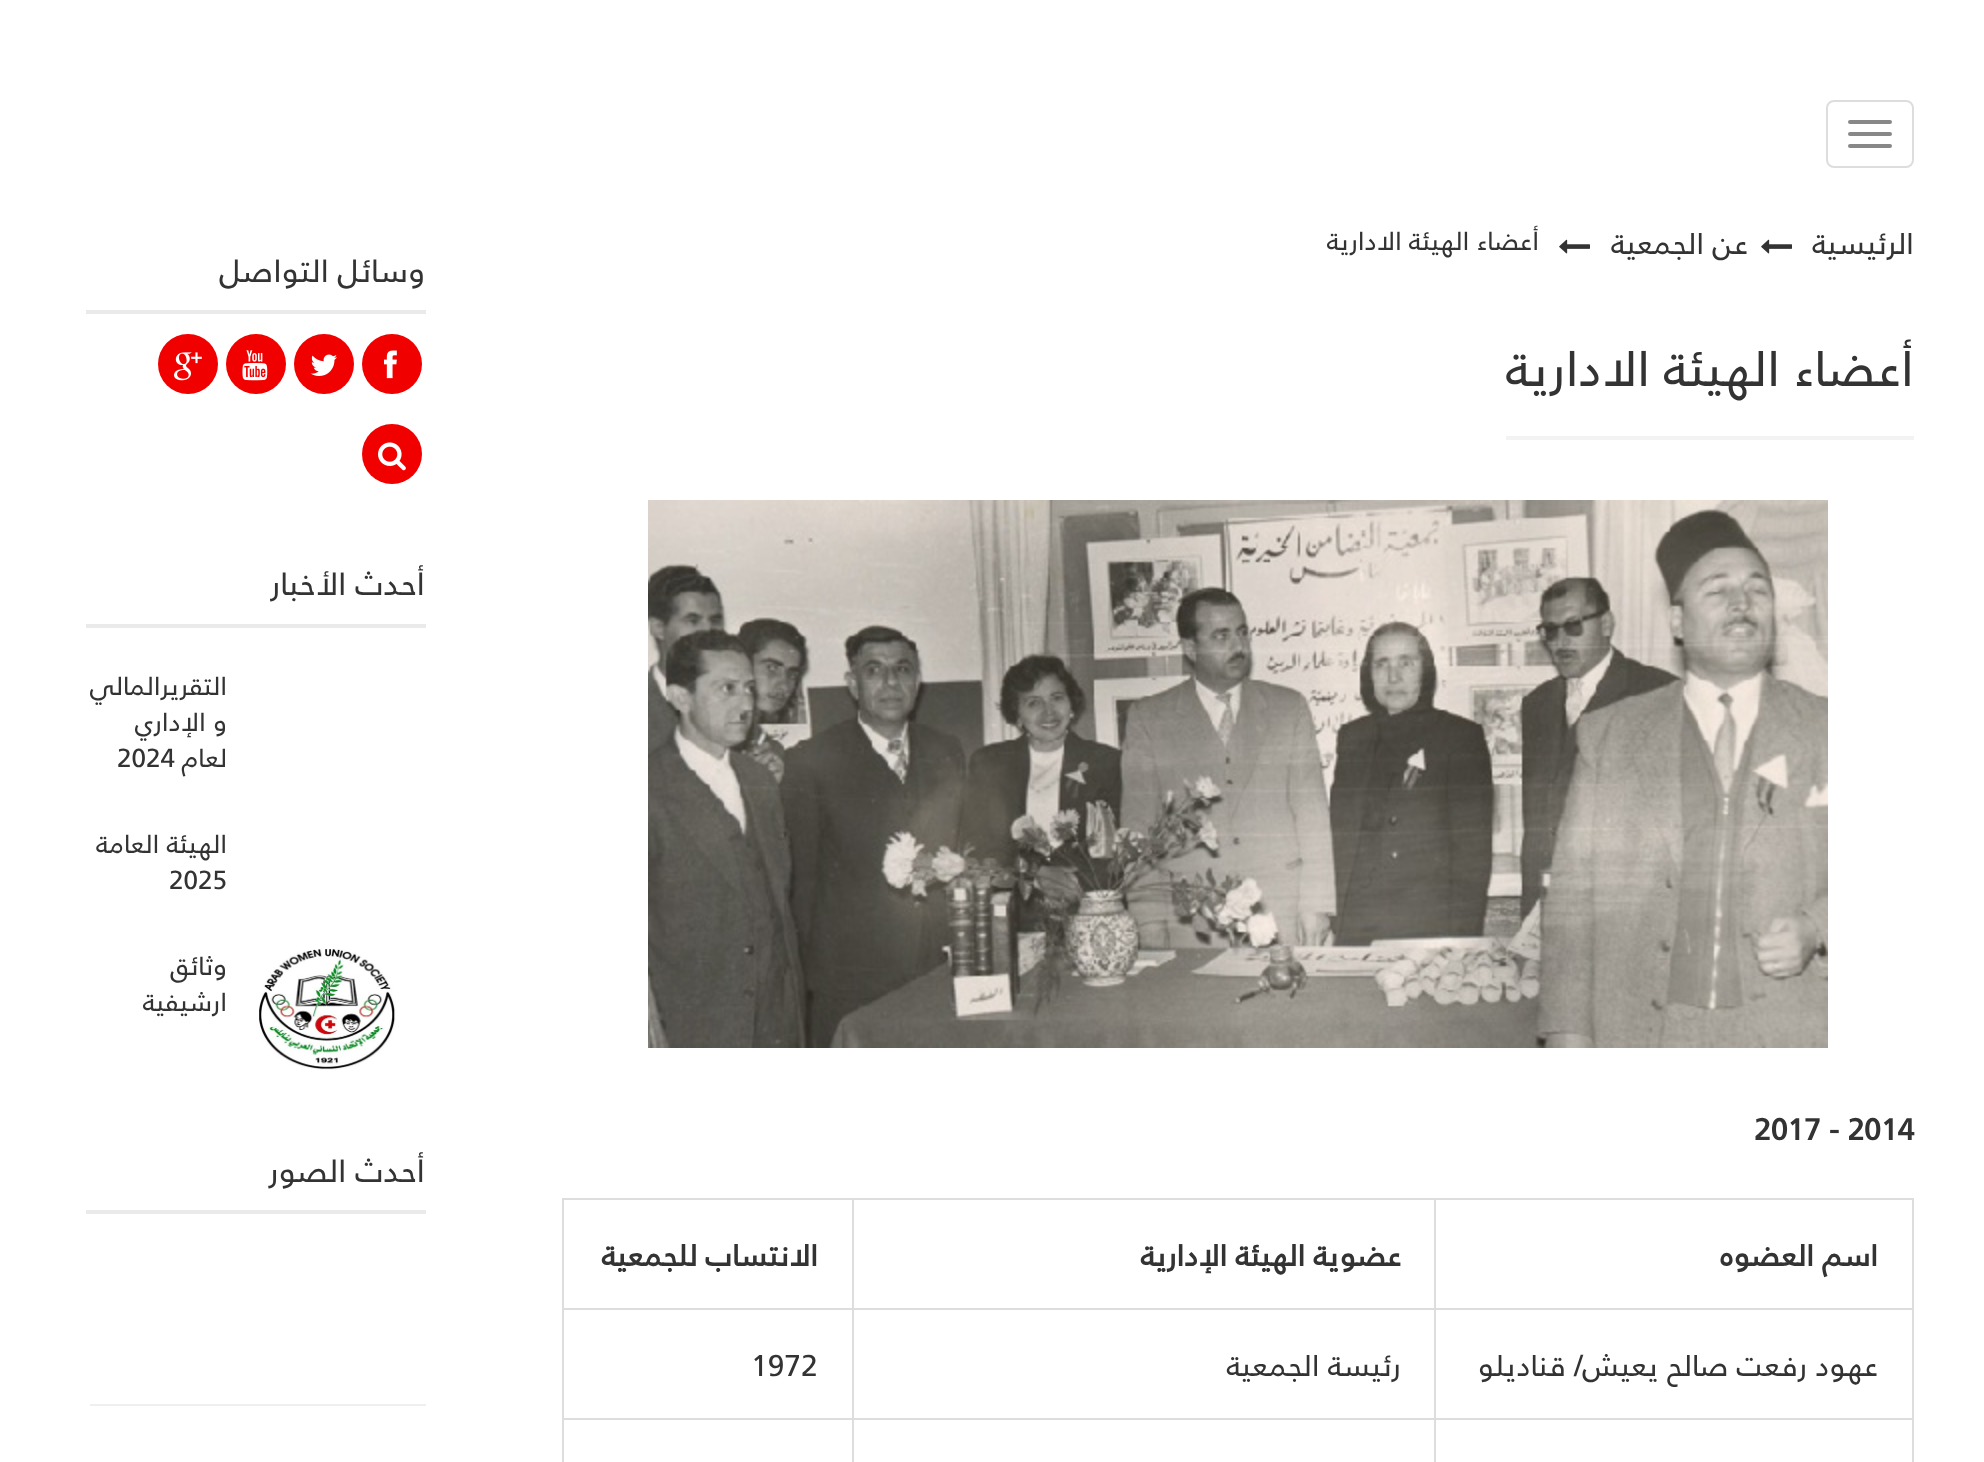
<!DOCTYPE html>
<meta charset="utf-8">
<style>body { margin: 0 } canvas { display: block }</style>
<canvas id="canvas" width="1984" height="1462"></canvas>
<script type="module">
  const canvas = document.getElementById("canvas");
  const ctx = canvas.getContext("2d");
  ctx.miterLimit = 4;
  ctx.fontKerning = "normal";
  async function loadImage(src) {
    const img = new Image();
    img.src = src;
    await img.decode();
    return img;
  }

  ctx.fillStyle = "#ffffff";
  ctx.fillRect(0, 0, 1984, 1462);
  ctx.beginPath();
  ctx.roundRect(1827, 101, 86, 66, 7);
  ctx.strokeStyle = "#dddddd";
  ctx.lineWidth = 2;
  ctx.stroke();
  ctx.fillStyle = "#888888";
  ctx.beginPath();
  ctx.roundRect(1848, 120, 44, 4, 2);
  ctx.fill();
  ctx.beginPath();
  ctx.roundRect(1848, 132, 44, 4, 2);
  ctx.fill();
  ctx.beginPath();
  ctx.roundRect(1848, 144, 44, 4, 2);
  ctx.fill();
  ctx.direction = "rtl";
  ctx.font = "30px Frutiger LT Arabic";
  ctx.fillStyle = "#333333";
  ctx.fillText("الرئيسية", 1914, 254);
  ctx.drawImage(await loadImage("img1.png"), 1761, 239, 31, 15);
  ctx.fillText("عن الجمعية", 1748, 254);
  ctx.drawImage(await loadImage("img1.png"), 1559, 239, 31, 15);
  ctx.font = "26px Frutiger LT Arabic";
  ctx.fillText("أعضاء الهيئة الادارية", 1539, 250);
  ctx.fillStyle = "#f3f3f3";
  ctx.fillRect(1506, 436, 408, 4);
  ctx.font = "50px Frutiger LT Arabic";
  ctx.fillStyle = "#333333";
  ctx.fillText("أعضاء الهيئة الادارية", 1914, 386);
  ctx.drawImage(await loadImage("img2.png"), 648, 500, 1180, 548);
  ctx.direction = "ltr";
  ctx.font = "bold 30px Frutiger LT Arabic";
  ctx.fillText("2017 - 2014", 1754, 1140);
  ctx.fillStyle = "#dddddd";
  ctx.fillRect(562, 1198, 292, 2);
  ctx.fillRect(562, 1308, 292, 2);
  ctx.fillRect(562, 1418, 292, 2);
  ctx.fillRect(852, 1418, 2, 44);
  ctx.fillRect(852, 1418, 584, 2);
  ctx.fillRect(852, 1308, 2, 112);
  ctx.fillRect(852, 1308, 584, 2);
  ctx.fillRect(852, 1198, 2, 112);
  ctx.fillRect(852, 1198, 584, 2);
  ctx.fillRect(1434, 1418, 2, 44);
  ctx.fillRect(1434, 1418, 480, 2);
  ctx.fillRect(1434, 1308, 2, 112);
  ctx.fillRect(1434, 1308, 480, 2);
  ctx.fillRect(1434, 1198, 2, 112);
  ctx.fillRect(1434, 1198, 480, 2);
  ctx.fillRect(1912, 1418, 2, 44);
  ctx.fillRect(1912, 1308, 2, 112);
  ctx.fillRect(1912, 1198, 2, 112);
  ctx.direction = "rtl";
  ctx.fillStyle = "#333333";
  ctx.fillText("اسم العضوه", 1878, 1266);
  ctx.fillText("عضوية الهيئة الإدارية", 1401, 1266);
  ctx.fillStyle = "#dddddd";
  ctx.fillRect(562, 1418, 2, 44);
  ctx.fillRect(562, 1308, 2, 112);
  ctx.fillRect(562, 1198, 2, 112);
  ctx.fillStyle = "#333333";
  ctx.fillText("الانتساب للجمعية", 818, 1266);
  ctx.font = "30px Frutiger LT Arabic";
  ctx.fillText("عهود رفعت صالح يعيش/ قناديلو", 1878, 1376);
  ctx.fillText("رئيسة الجمعية", 1401, 1376);
  ctx.direction = "ltr";
  ctx.fillText("1972", 751, 1376);
  ctx.fillStyle = "#eaeaea";
  ctx.fillRect(86, 310, 340, 4);
  ctx.direction = "rtl";
  ctx.font = "32px Frutiger LT Arabic";
  ctx.fillStyle = "#333333";
  ctx.fillText("وسائل التواصل", 425, 282);
  ctx.fillStyle = "#f10000";
  ctx.beginPath();
  ctx.arc(392, 364, 30, 0, Math.PI * 2);
  ctx.fill();
  ctx.drawImage(await loadImage("img3.png"), 384, 350, 13, 29);
  ctx.beginPath();
  ctx.arc(324, 364, 30, 0, Math.PI * 2);
  ctx.fill();
  ctx.drawImage(await loadImage("img4.png"), 311, 354, 26, 22);
  ctx.beginPath();
  ctx.arc(256, 364, 30, 0, Math.PI * 2);
  ctx.fill();
  ctx.drawImage(await loadImage("img5.png"), 242, 350, 26, 31);
  ctx.beginPath();
  ctx.arc(188, 364, 30, 0, Math.PI * 2);
  ctx.fill();
  ctx.drawImage(await loadImage("img6.png"), 174, 352, 28, 29);
  ctx.beginPath();
  ctx.arc(392, 454, 30, 0, Math.PI * 2);
  ctx.fill();
  ctx.drawImage(await loadImage("img7.png"), 378, 442, 28, 29);
  ctx.fillStyle = "#eaeaea";
  ctx.fillRect(86, 624, 340, 4);
  ctx.fillStyle = "#333333";
  ctx.fillText("أحدث الأخبار", 425, 595);
  ctx.font = "26px Frutiger LT Arabic";
  ctx.fillText("التقريرالمالي", 227, 695);
  ctx.fillText("و الإداري", 227, 731);
  ctx.fillText("لعام", 227, 767);
  ctx.direction = "ltr";
  ctx.fillText("2024", 117, 767);
  ctx.direction = "rtl";
  ctx.fillText("الهيئة العامة", 227, 853);
  ctx.direction = "ltr";
  ctx.fillText("2025", 169, 889);
  ctx.drawImage(await loadImage("img8.png"), 259, 949, 137, 121);
  ctx.direction = "rtl";
  ctx.fillText("وثائق", 227, 975);
  ctx.fillText("ارشيفية", 227, 1011);
  ctx.fillStyle = "#eaeaea";
  ctx.fillRect(86, 1210, 340, 4);
  ctx.font = "32px Frutiger LT Arabic";
  ctx.fillStyle = "#333333";
  ctx.fillText("أحدث الصور", 425, 1182);
  ctx.fillStyle = "#efefef";
  ctx.fillRect(90, 1404, 336, 2);
</script>
